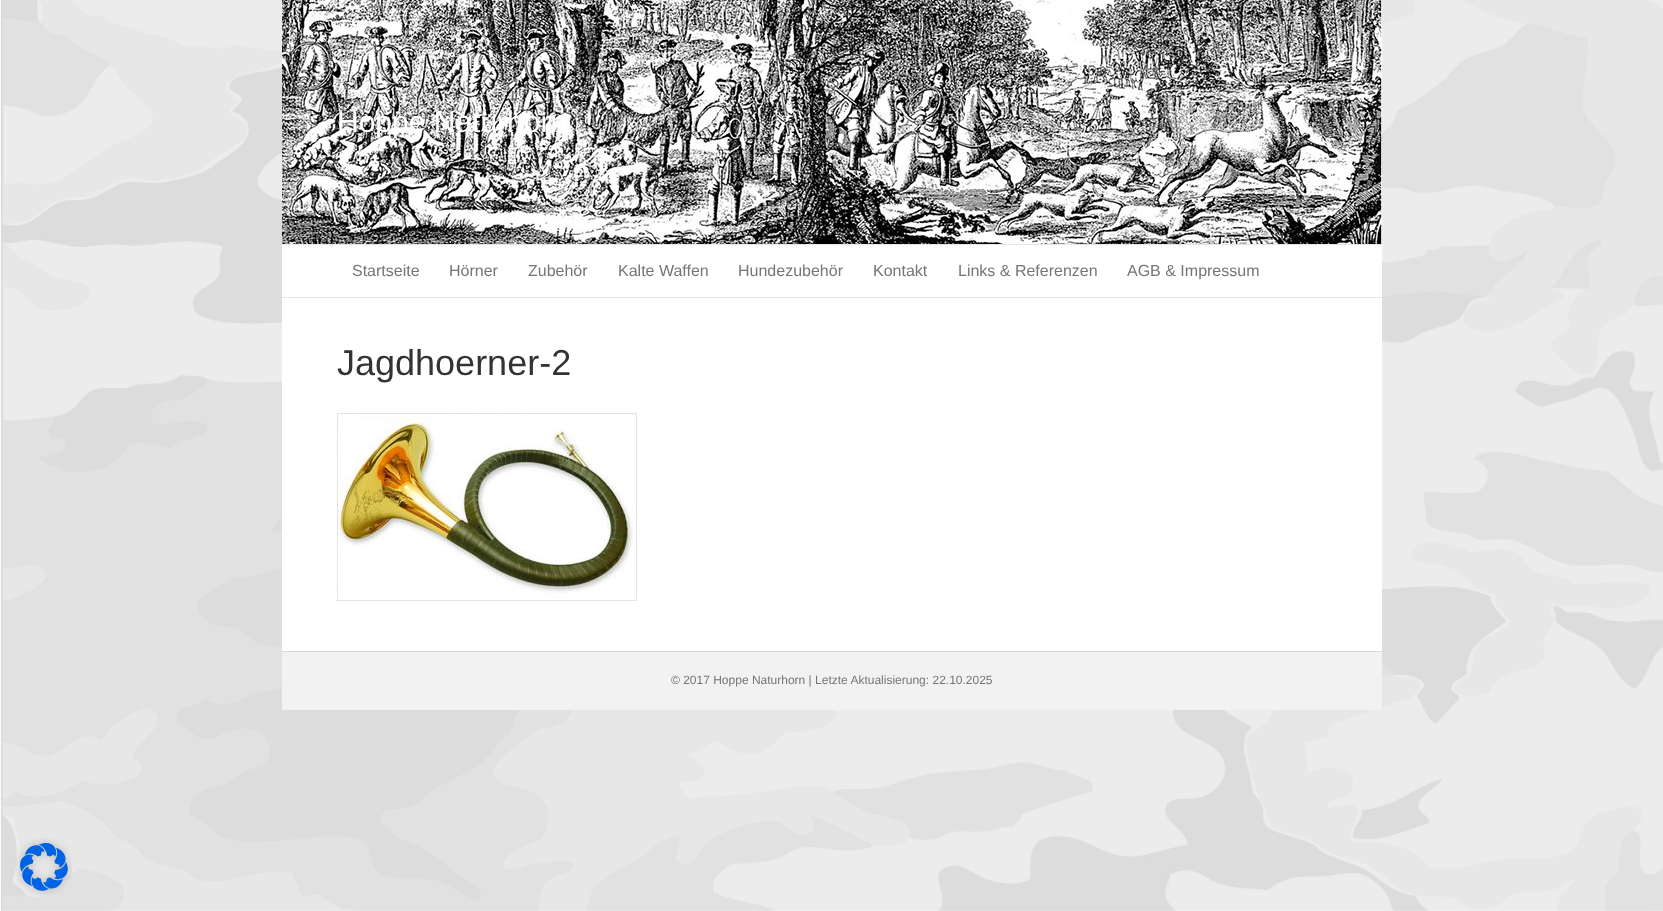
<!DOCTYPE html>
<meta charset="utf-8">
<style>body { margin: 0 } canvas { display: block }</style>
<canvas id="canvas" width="1663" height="911"></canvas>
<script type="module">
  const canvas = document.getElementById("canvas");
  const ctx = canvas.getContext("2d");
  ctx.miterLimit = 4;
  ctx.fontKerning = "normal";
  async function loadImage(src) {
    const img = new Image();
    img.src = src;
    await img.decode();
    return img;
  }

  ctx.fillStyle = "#ffffff";
  ctx.fillRect(0, 0, 1663, 911);
  ctx.drawImage(await loadImage("img1.png"), 0, 0, 1663, 911);
  ctx.drawImage(await loadImage("img2.png"), 282, 0, 1100, 244);
  ctx.font = "30px Liberation Sans";
  ctx.fillText("Hoppe Naturhorn", 337, 132);
  ctx.fillRect(282, 245, 1100, 52);
  ctx.fillStyle = "#e6e6e6";
  ctx.fillRect(282, 244, 1100, 1);
  ctx.fillRect(282, 297, 1100, 1);
  ctx.font = "16px Liberation Sans";
  ctx.fillStyle = "#757575";
  ctx.fillText("Startseite", 352, 276);
  ctx.fillText("Hörner", 449, 276);
  ctx.fillText("Zubehör", 528, 276);
  ctx.fillText("Kalte Waffen", 618, 276);
  ctx.fillText("Hundezubehör", 738, 276);
  ctx.fillText("Kontakt", 873, 276);
  ctx.fillText("Links & Referenzen", 958, 276);
  ctx.fillText("AGB & Impressum", 1127, 276);
  ctx.fillStyle = "#ffffff";
  ctx.fillRect(282, 298, 1100, 353);
  ctx.font = "36px Liberation Sans";
  ctx.fillStyle = "#333333";
  ctx.fillText("Jagdhoerner-2", 337, 375);
  ctx.drawImage(await loadImage("img3.png"), 337, 413, 300, 188);
  ctx.fillStyle = "#f2f2f2";
  ctx.fillRect(282, 652, 1100, 58);
  ctx.fillStyle = "#d9d9d9";
  ctx.fillRect(282, 651, 1100, 1);
  ctx.font = "12px Liberation Sans";
  ctx.fillStyle = "#757575";
  ctx.fillText("© 2017 Hoppe Naturhorn | Letzte Aktualisierung: 22.10.2025", 671, 684);
  ctx.drawImage(await loadImage("img4.png"), 15, 838, 57, 57);
</script>
